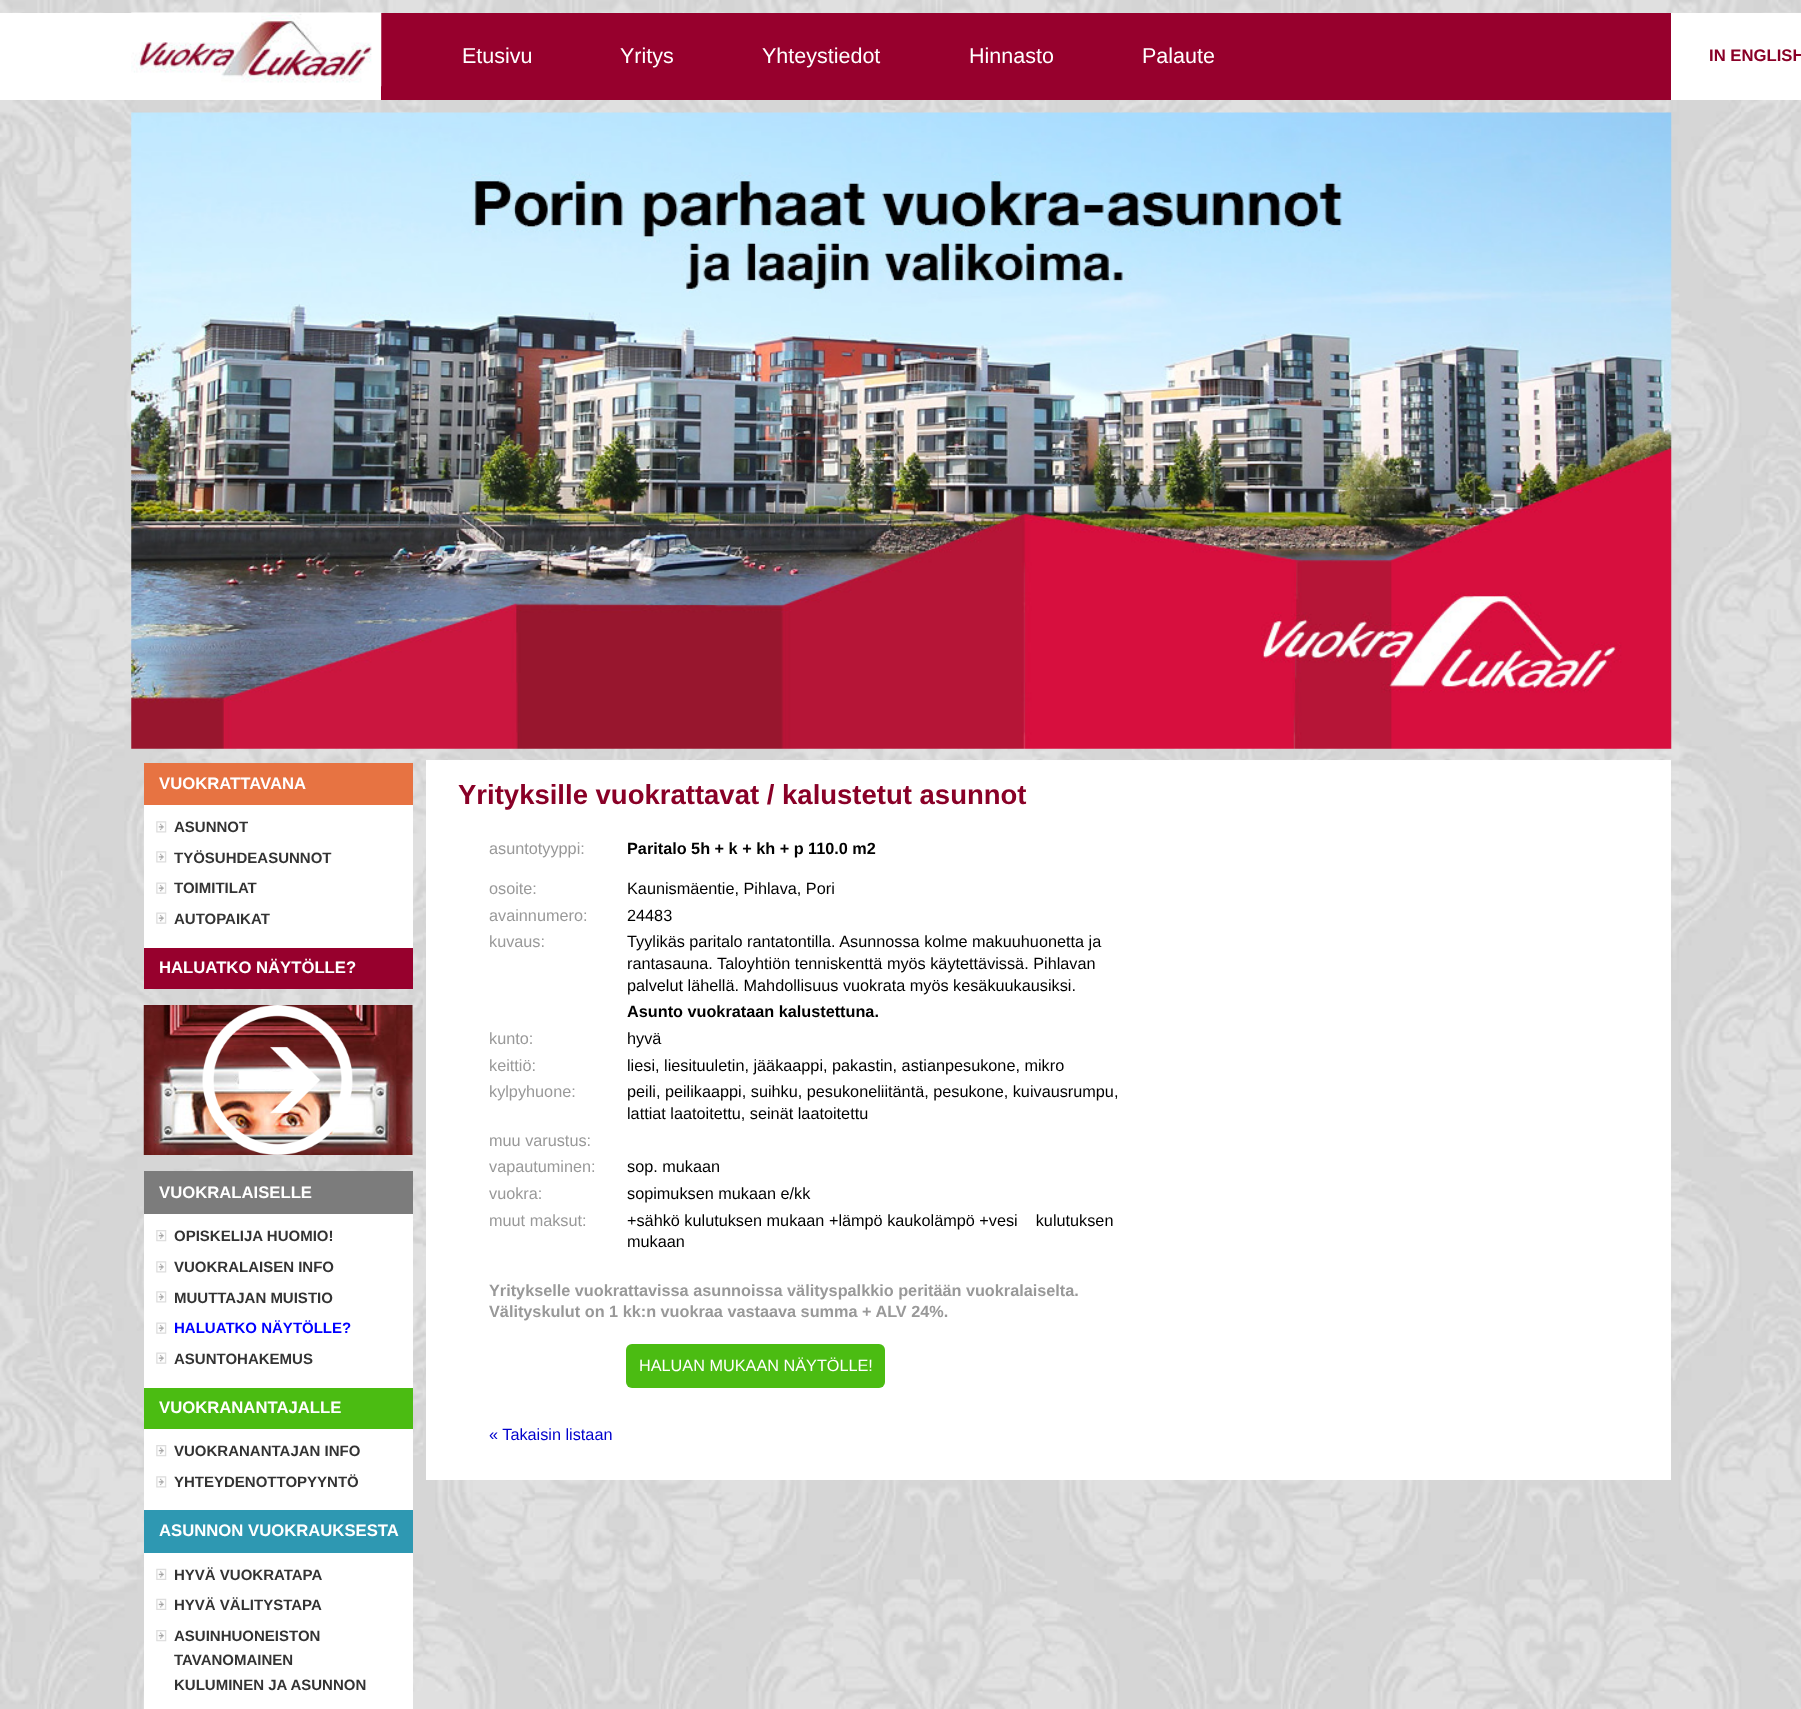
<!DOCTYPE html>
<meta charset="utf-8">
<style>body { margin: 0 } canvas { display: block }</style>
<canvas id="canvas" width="1801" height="1709"></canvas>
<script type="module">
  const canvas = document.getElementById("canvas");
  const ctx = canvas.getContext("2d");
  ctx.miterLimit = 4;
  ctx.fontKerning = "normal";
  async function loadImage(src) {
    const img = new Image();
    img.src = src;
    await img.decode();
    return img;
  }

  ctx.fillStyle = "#ffffff";
  ctx.fillRect(0, 0, 1801, 1709);
  ctx.drawImage(await loadImage("img1.png"), 0, 0, 1801, 1709);
  ctx.drawImage(await loadImage("img2.png"), 131, 112, 1541, 637);
  ctx.fillRect(0, 13, 1801, 87);
  ctx.fillStyle = "#97002d";
  ctx.fillRect(381, 13, 1290, 87);
  ctx.drawImage(await loadImage("img3.png"), 131, 12, 251, 75);
  ctx.font = "21.5px Liberation Sans";
  ctx.fillStyle = "#ffffff";
  ctx.fillText("Etusivu", 462, 63);
  ctx.fillText("Yritys", 620, 63);
  ctx.fillText("Yhteystiedot", 762, 63);
  ctx.fillText("Hinnasto", 969, 63);
  ctx.fillText("Palaute", 1142, 63);
  ctx.font = "bold 16.7px Liberation Sans";
  ctx.fillStyle = "#890027";
  ctx.fillText("IN ENGLISH", 1709, 61);
  ctx.fillStyle = "#e77342";
  ctx.fillRect(144, 763, 269, 42);
  ctx.fillStyle = "#ffffff";
  ctx.fillText("VUOKRATTAVANA", 159, 789);
  ctx.fillRect(144, 805, 269, 143);
  ctx.drawImage(await loadImage("img4.png"), 156, 821, 11, 12);
  ctx.font = "bold 15px Liberation Sans";
  ctx.fillStyle = "#333333";
  ctx.fillText("ASUNNOT", 174, 832);
  ctx.drawImage(await loadImage("img4.png"), 156, 851, 11, 12);
  ctx.fillText("TYÖSUHDEASUNNOT", 174, 863);
  ctx.drawImage(await loadImage("img5.png"), 156, 882, 11, 12);
  ctx.fillText("TOIMITILAT", 174, 893);
  ctx.drawImage(await loadImage("img5.png"), 156, 912, 11, 12);
  ctx.fillText("AUTOPAIKAT", 174, 924);
  ctx.fillStyle = "#97002d";
  ctx.fillRect(144, 948, 269, 41);
  ctx.font = "bold 16.7px Liberation Sans";
  ctx.fillStyle = "#ffffff";
  ctx.fillText("HALUATKO NÄYTÖLLE?", 159, 973);
  ctx.drawImage(await loadImage("img6.png"), 143, 1005, 270, 150);
  ctx.drawImage(await loadImage("img7.png"), 202, 1005, 151, 150);
  ctx.fillStyle = "#7c7c7c";
  ctx.fillRect(144, 1171, 269, 43);
  ctx.fillStyle = "#ffffff";
  ctx.fillText("VUOKRALAISELLE", 159, 1198);
  ctx.fillRect(144, 1214, 269, 174);
  ctx.drawImage(await loadImage("img8.png"), 156, 1230, 11, 12);
  ctx.font = "bold 15px Liberation Sans";
  ctx.fillStyle = "#333333";
  ctx.fillText("OPISKELIJA HUOMIO!", 174, 1241);
  ctx.drawImage(await loadImage("img4.png"), 156, 1261, 11, 12);
  ctx.fillText("VUOKRALAISEN INFO", 174, 1272);
  ctx.drawImage(await loadImage("img4.png"), 156, 1291, 11, 12);
  ctx.fillText("MUUTTAJAN MUISTIO", 174, 1303);
  ctx.drawImage(await loadImage("img5.png"), 156, 1322, 11, 12);
  ctx.fillStyle = "#0000ff";
  ctx.fillText("HALUATKO NÄYTÖLLE?", 174, 1333);
  ctx.drawImage(await loadImage("img5.png"), 156, 1352, 11, 12);
  ctx.fillStyle = "#333333";
  ctx.fillText("ASUNTOHAKEMUS", 174, 1364);
  ctx.fillStyle = "#4bbc12";
  ctx.fillRect(144, 1388, 269, 41);
  ctx.font = "bold 16.7px Liberation Sans";
  ctx.fillStyle = "#ffffff";
  ctx.fillText("VUOKRANANTAJALLE", 159, 1413);
  ctx.fillRect(144, 1429, 269, 81);
  ctx.drawImage(await loadImage("img8.png"), 156, 1445, 11, 12);
  ctx.font = "bold 15px Liberation Sans";
  ctx.fillStyle = "#333333";
  ctx.fillText("VUOKRANANTAJAN INFO", 174, 1456);
  ctx.drawImage(await loadImage("img4.png"), 156, 1476, 11, 12);
  ctx.fillText("YHTEYDENOTTOPYYNTÖ", 174, 1487);
  ctx.fillStyle = "#2e98b2";
  ctx.fillRect(144, 1510, 269, 43);
  ctx.font = "bold 16.7px Liberation Sans";
  ctx.fillStyle = "#ffffff";
  ctx.fillText("ASUNNON VUOKRAUKSESTA", 159, 1536);
  ctx.fillRect(144, 1553, 269, 156);
  ctx.drawImage(await loadImage("img9.png"), 156, 1568, 11, 12);
  ctx.font = "bold 15px Liberation Sans";
  ctx.fillStyle = "#333333";
  ctx.fillText("HYVÄ VUOKRATAPA", 174, 1580);
  ctx.drawImage(await loadImage("img9.png"), 156, 1598, 11, 12);
  ctx.fillText("HYVÄ VÄLITYSTAPA", 174, 1610);
  ctx.drawImage(await loadImage("img8.png"), 156, 1630, 11, 12);
  ctx.fillText("ASUINHUONEISTON", 174, 1641);
  ctx.fillText("TAVANOMAINEN", 174, 1665);
  ctx.fillText("KULUMINEN JA ASUNNON", 174, 1690);
  ctx.fillStyle = "#ffffff";
  ctx.fillRect(426, 760, 1245, 720);
  ctx.font = "bold 27.5px Liberation Sans";
  ctx.fillStyle = "#890027";
  ctx.fillText("Yrityksille vuokrattavat / kalustetut asunnot", 458, 804);
  ctx.font = "16.25px Liberation Sans";
  ctx.fillStyle = "#999999";
  ctx.fillText("asuntotyyppi:", 489, 854);
  ctx.font = "bold 16.25px Liberation Sans";
  ctx.fillStyle = "#000000";
  ctx.fillText("Paritalo 5h + k + kh + p 110.0 m2", 627, 854);
  ctx.font = "16.25px Liberation Sans";
  ctx.fillStyle = "#999999";
  ctx.fillText("osoite:", 489, 894);
  ctx.fillStyle = "#000000";
  ctx.fillText("Kaunismäentie, Pihlava, Pori", 627, 894);
  ctx.fillStyle = "#999999";
  ctx.fillText("avainnumero:", 489, 921);
  ctx.fillStyle = "#000000";
  ctx.fillText("24483", 627, 921);
  ctx.fillStyle = "#999999";
  ctx.fillText("kuvaus:", 489, 947);
  ctx.fillStyle = "#000000";
  ctx.fillText("Tyylikäs paritalo rantatontilla. Asunnossa kolme makuuhuonetta ja", 627, 947);
  ctx.fillText("rantasauna. Taloyhtiön tenniskenttä myös käytettävissä. Pihlavan", 627, 969);
  ctx.fillText("palvelut lähellä. Mahdollisuus vuokrata myös kesäkuukausiksi.", 627, 991);
  ctx.font = "bold 16.25px Liberation Sans";
  ctx.fillText("Asunto vuokrataan kalustettuna.", 627, 1017);
  ctx.font = "16.25px Liberation Sans";
  ctx.fillStyle = "#999999";
  ctx.fillText("kunto:", 489, 1044);
  ctx.fillStyle = "#000000";
  ctx.fillText("hyvä", 627, 1044);
  ctx.fillStyle = "#999999";
  ctx.fillText("keittiö:", 489, 1071);
  ctx.fillStyle = "#000000";
  ctx.fillText("liesi, liesituuletin, jääkaappi, pakastin, astianpesukone, mikro", 627, 1071);
  ctx.fillStyle = "#999999";
  ctx.fillText("kylpyhuone:", 489, 1097);
  ctx.fillStyle = "#000000";
  ctx.fillText("peili, peilikaappi, suihku, pesukoneliitäntä, pesukone, kuivausrumpu,", 627, 1097);
  ctx.fillText("lattiat laatoitettu, seinät laatoitettu", 627, 1119);
  ctx.fillStyle = "#999999";
  ctx.fillText("muu varustus:", 489, 1146);
  ctx.fillText("vapautuminen:", 489, 1172);
  ctx.fillStyle = "#000000";
  ctx.fillText("sop. mukaan", 627, 1172);
  ctx.fillStyle = "#999999";
  ctx.fillText("vuokra:", 489, 1199);
  ctx.fillStyle = "#000000";
  ctx.fillText("sopimuksen mukaan e/kk", 627, 1199);
  ctx.fillStyle = "#999999";
  ctx.fillText("muut maksut:", 489, 1226);
  ctx.fillStyle = "#000000";
  ctx.fillText("+sähkö kulutuksen mukaan +lämpö kaukolämpö +vesi    kulutuksen", 627, 1226);
  ctx.fillText("mukaan", 627, 1247);
  ctx.font = "bold 16.25px Liberation Sans";
  ctx.fillStyle = "#999999";
  ctx.fillText("Yritykselle vuokrattavissa asunnoissa välityspalkkio peritään vuokralaiselta.", 489, 1296);
  ctx.fillText("Välityskulut on 1 kk:n vuokraa vastaava summa + ALV 24%.", 489, 1317);
  ctx.fillStyle = "#4bbc12";
  ctx.beginPath();
  ctx.roundRect(626, 1344, 259, 44, 6);
  ctx.fill();
  ctx.font = "16.25px Liberation Sans";
  ctx.fillStyle = "#ffffff";
  ctx.fillText("HALUAN MUKAAN NÄYTÖLLE!", 639, 1371);
  ctx.fillStyle = "#0000cc";
  ctx.fillText("« Takaisin listaan", 489, 1440);
</script>
